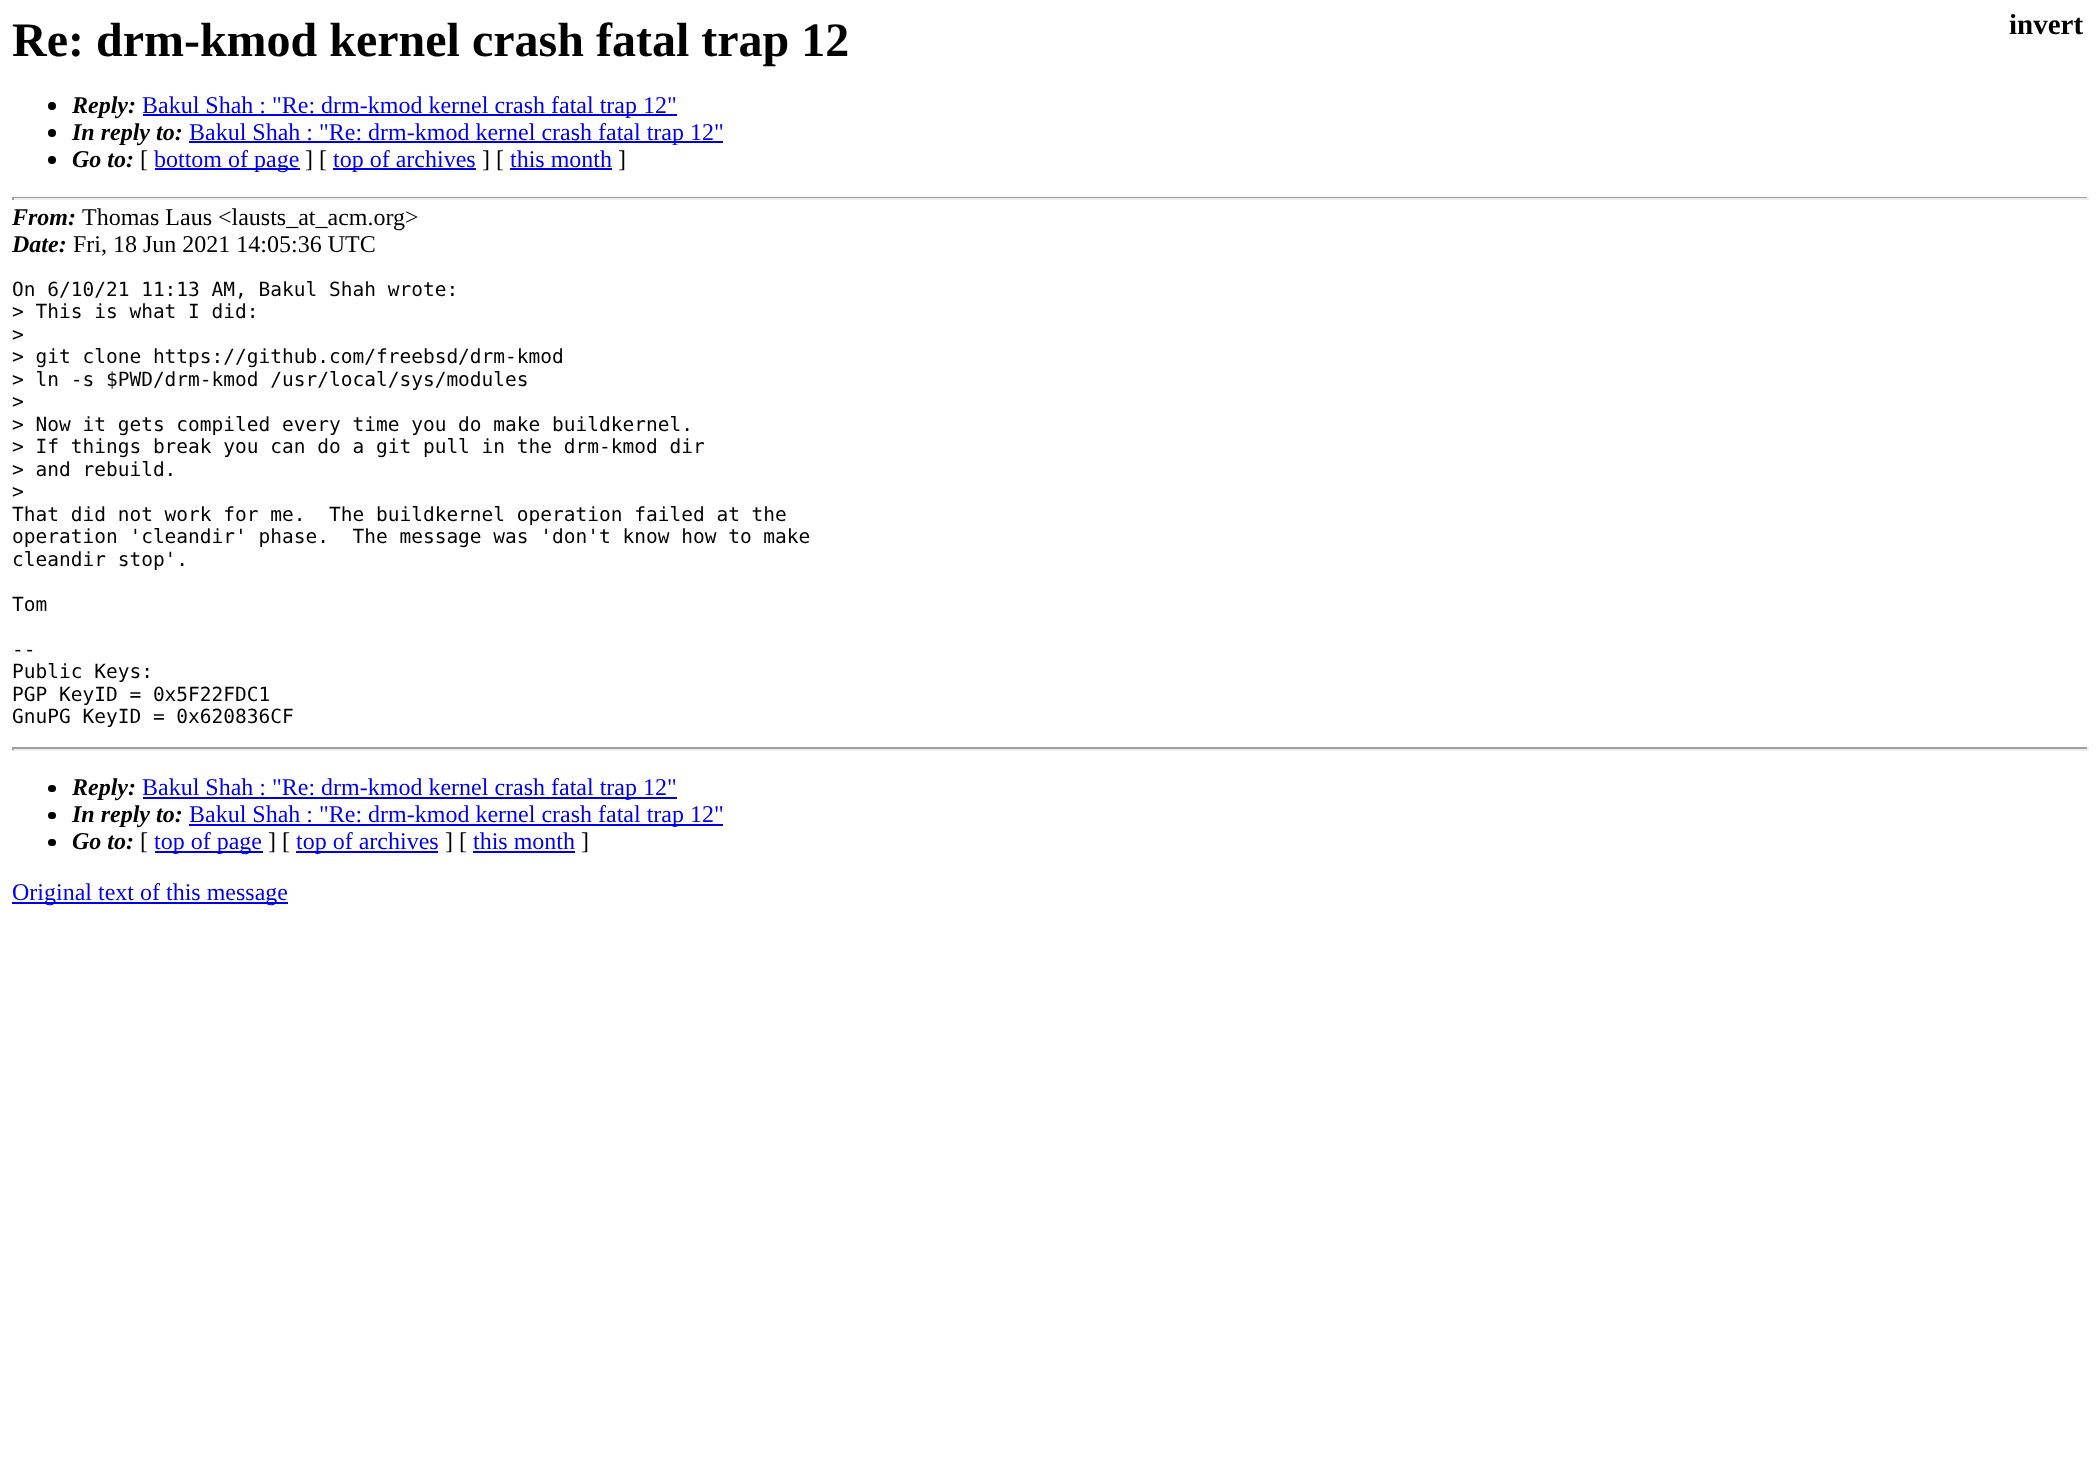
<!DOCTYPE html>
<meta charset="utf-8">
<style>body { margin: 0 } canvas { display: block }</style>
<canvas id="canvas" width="2099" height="1475"></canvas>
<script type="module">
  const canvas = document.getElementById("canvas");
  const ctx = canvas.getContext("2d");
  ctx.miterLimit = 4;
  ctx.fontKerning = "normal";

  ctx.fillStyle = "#ffffff";
  ctx.fillRect(0, 0, 2099, 1475);
  ctx.font = "bold 48px Liberation Serif";
  ctx.fillStyle = "#000000";
  ctx.fillText("Re: drm-kmod kernel crash fatal trap 12", 12, 56);
  ctx.beginPath();
  ctx.arc(52, 106, 4, 0, Math.PI * 2);
  ctx.fill();
  ctx.font = "italic bold 24px Liberation Serif";
  ctx.fillText("Reply:", 72, 113);
  ctx.fillStyle = "#0000ee";
  ctx.fillRect(143, 114, 534, 2);
  ctx.font = "24px Liberation Serif";
  ctx.fillText("Bakul Shah : \"Re: drm-kmod kernel crash fatal trap 12\"", 142, 113);
  ctx.fillStyle = "#000000";
  ctx.beginPath();
  ctx.arc(52, 133, 4, 0, Math.PI * 2);
  ctx.fill();
  ctx.font = "italic bold 24px Liberation Serif";
  ctx.fillText("In reply to:", 72, 140);
  ctx.fillStyle = "#0000ee";
  ctx.fillRect(189, 141, 534, 2);
  ctx.font = "24px Liberation Serif";
  ctx.fillText("Bakul Shah : \"Re: drm-kmod kernel crash fatal trap 12\"", 189, 140);
  ctx.fillStyle = "#000000";
  ctx.beginPath();
  ctx.arc(52, 160, 4, 0, Math.PI * 2);
  ctx.fill();
  ctx.font = "italic bold 24px Liberation Serif";
  ctx.fillText("Go to:", 72, 167);
  ctx.font = "24px Liberation Serif";
  ctx.fillText("[", 140, 167);
  ctx.fillStyle = "#0000ee";
  ctx.fillRect(155, 168, 145, 2);
  ctx.fillText("bottom of page", 154, 167);
  ctx.fillStyle = "#000000";
  ctx.fillText("] [", 305, 167);
  ctx.fillStyle = "#0000ee";
  ctx.fillRect(333, 168, 143, 2);
  ctx.fillText("top of archives", 333, 167);
  ctx.fillStyle = "#000000";
  ctx.fillText("] [", 482, 167);
  ctx.fillStyle = "#0000ee";
  ctx.fillText("this month", 510, 167);
  ctx.fillRect(510, 168, 102, 2);
  ctx.fillStyle = "#000000";
  ctx.fillText("]", 618, 167);
  ctx.fillStyle = "#9f9f9f";
  ctx.fillRect(12, 197, 2076, 1);
  ctx.fillStyle = "#eeeeee";
  ctx.fillRect(2087, 197, 2, 3);
  ctx.fillRect(12, 198, 2076, 2);
  ctx.fillStyle = "#9f9f9f";
  ctx.fillRect(12, 197, 2, 3);
  ctx.font = "bold 29px Liberation Serif";
  ctx.fillStyle = "#000000";
  ctx.fillText("invert", 2009, 34);
  ctx.font = "italic bold 24px Liberation Serif";
  ctx.fillText("From:", 12, 225);
  ctx.font = "24px Liberation Serif";
  ctx.fillText("Thomas Laus <lausts_at_acm.org>", 82, 225);
  ctx.font = "italic bold 24px Liberation Serif";
  ctx.fillText("Date:", 12, 252);
  ctx.font = "24px Liberation Serif";
  ctx.fillText("Fri, 18 Jun 2021 14:05:36 UTC", 73, 252);
  ctx.font = "19.5px DejaVu Sans Mono";
  ctx.fillText("On 6/10/21 11:13 AM, Bakul Shah wrote:", 12, 296);
  ctx.fillText("> This is what I did:", 12, 318);
  ctx.fillText(">", 12, 341);
  ctx.fillText("> git clone https://github.com/freebsd/drm-kmod", 12, 363);
  ctx.fillText("> ln -s $PWD/drm-kmod /usr/local/sys/modules", 12, 386);
  ctx.fillText(">", 12, 408);
  ctx.fillText("> Now it gets compiled every time you do make buildkernel.", 12, 431);
  ctx.fillText("> If things break you can do a git pull in the drm-kmod dir", 12, 453);
  ctx.fillText("> and rebuild.", 12, 476);
  ctx.fillText(">", 12, 498);
  ctx.fillText("That did not work for me.  The buildkernel operation failed at the", 12, 521);
  ctx.fillText("operation 'cleandir' phase.  The message was 'don't know how to make", 12, 543);
  ctx.fillText("cleandir stop'.", 12, 566);
  ctx.fillText("Tom", 12, 611);
  ctx.fillText("--", 12, 656);
  ctx.fillText("Public Keys:", 12, 678);
  ctx.fillText("PGP KeyID = 0x5F22FDC1", 12, 701);
  ctx.fillText("GnuPG KeyID = 0x620836CF", 12, 723);
  ctx.fillStyle = "#9f9f9f";
  ctx.fillRect(12, 747, 2076, 2);
  ctx.fillStyle = "#eeeeee";
  ctx.fillRect(2087, 747, 2, 3);
  ctx.fillRect(12, 749, 2076, 2);
  ctx.fillStyle = "#9f9f9f";
  ctx.fillRect(12, 747, 2, 3);
  ctx.fillStyle = "#000000";
  ctx.beginPath();
  ctx.roundRect(48, 785, 8, 7, 3.5);
  ctx.fill();
  ctx.font = "italic bold 24px Liberation Serif";
  ctx.fillText("Reply:", 72, 795);
  ctx.fillStyle = "#0000ee";
  ctx.fillRect(143, 797, 534, 2);
  ctx.font = "24px Liberation Serif";
  ctx.fillText("Bakul Shah : \"Re: drm-kmod kernel crash fatal trap 12\"", 142, 795);
  ctx.fillStyle = "#000000";
  ctx.beginPath();
  ctx.roundRect(48, 812, 8, 7, 3.5);
  ctx.fill();
  ctx.font = "italic bold 24px Liberation Serif";
  ctx.fillText("In reply to:", 72, 822);
  ctx.fillStyle = "#0000ee";
  ctx.fillRect(189, 824, 534, 2);
  ctx.font = "24px Liberation Serif";
  ctx.fillText("Bakul Shah : \"Re: drm-kmod kernel crash fatal trap 12\"", 189, 822);
  ctx.fillStyle = "#000000";
  ctx.beginPath();
  ctx.roundRect(48, 839, 8, 7, 3.5);
  ctx.fill();
  ctx.font = "italic bold 24px Liberation Serif";
  ctx.fillText("Go to:", 72, 849);
  ctx.font = "24px Liberation Serif";
  ctx.fillText("[", 140, 849);
  ctx.fillStyle = "#0000ee";
  ctx.fillRect(155, 851, 108, 2);
  ctx.fillText("top of page", 154, 849);
  ctx.fillStyle = "#000000";
  ctx.fillText("] [", 268, 849);
  ctx.fillStyle = "#0000ee";
  ctx.fillRect(296, 851, 142, 2);
  ctx.fillText("top of archives", 296, 849);
  ctx.fillStyle = "#000000";
  ctx.fillText("] [", 445, 849);
  ctx.fillStyle = "#0000ee";
  ctx.fillText("this month", 473, 849);
  ctx.fillRect(473, 851, 102, 2);
  ctx.fillStyle = "#000000";
  ctx.fillText("]", 581, 849);
  ctx.fillStyle = "#0000ee";
  ctx.fillRect(12, 902, 276, 2);
  ctx.fillText("Original text of this message", 12, 900);
</script>
